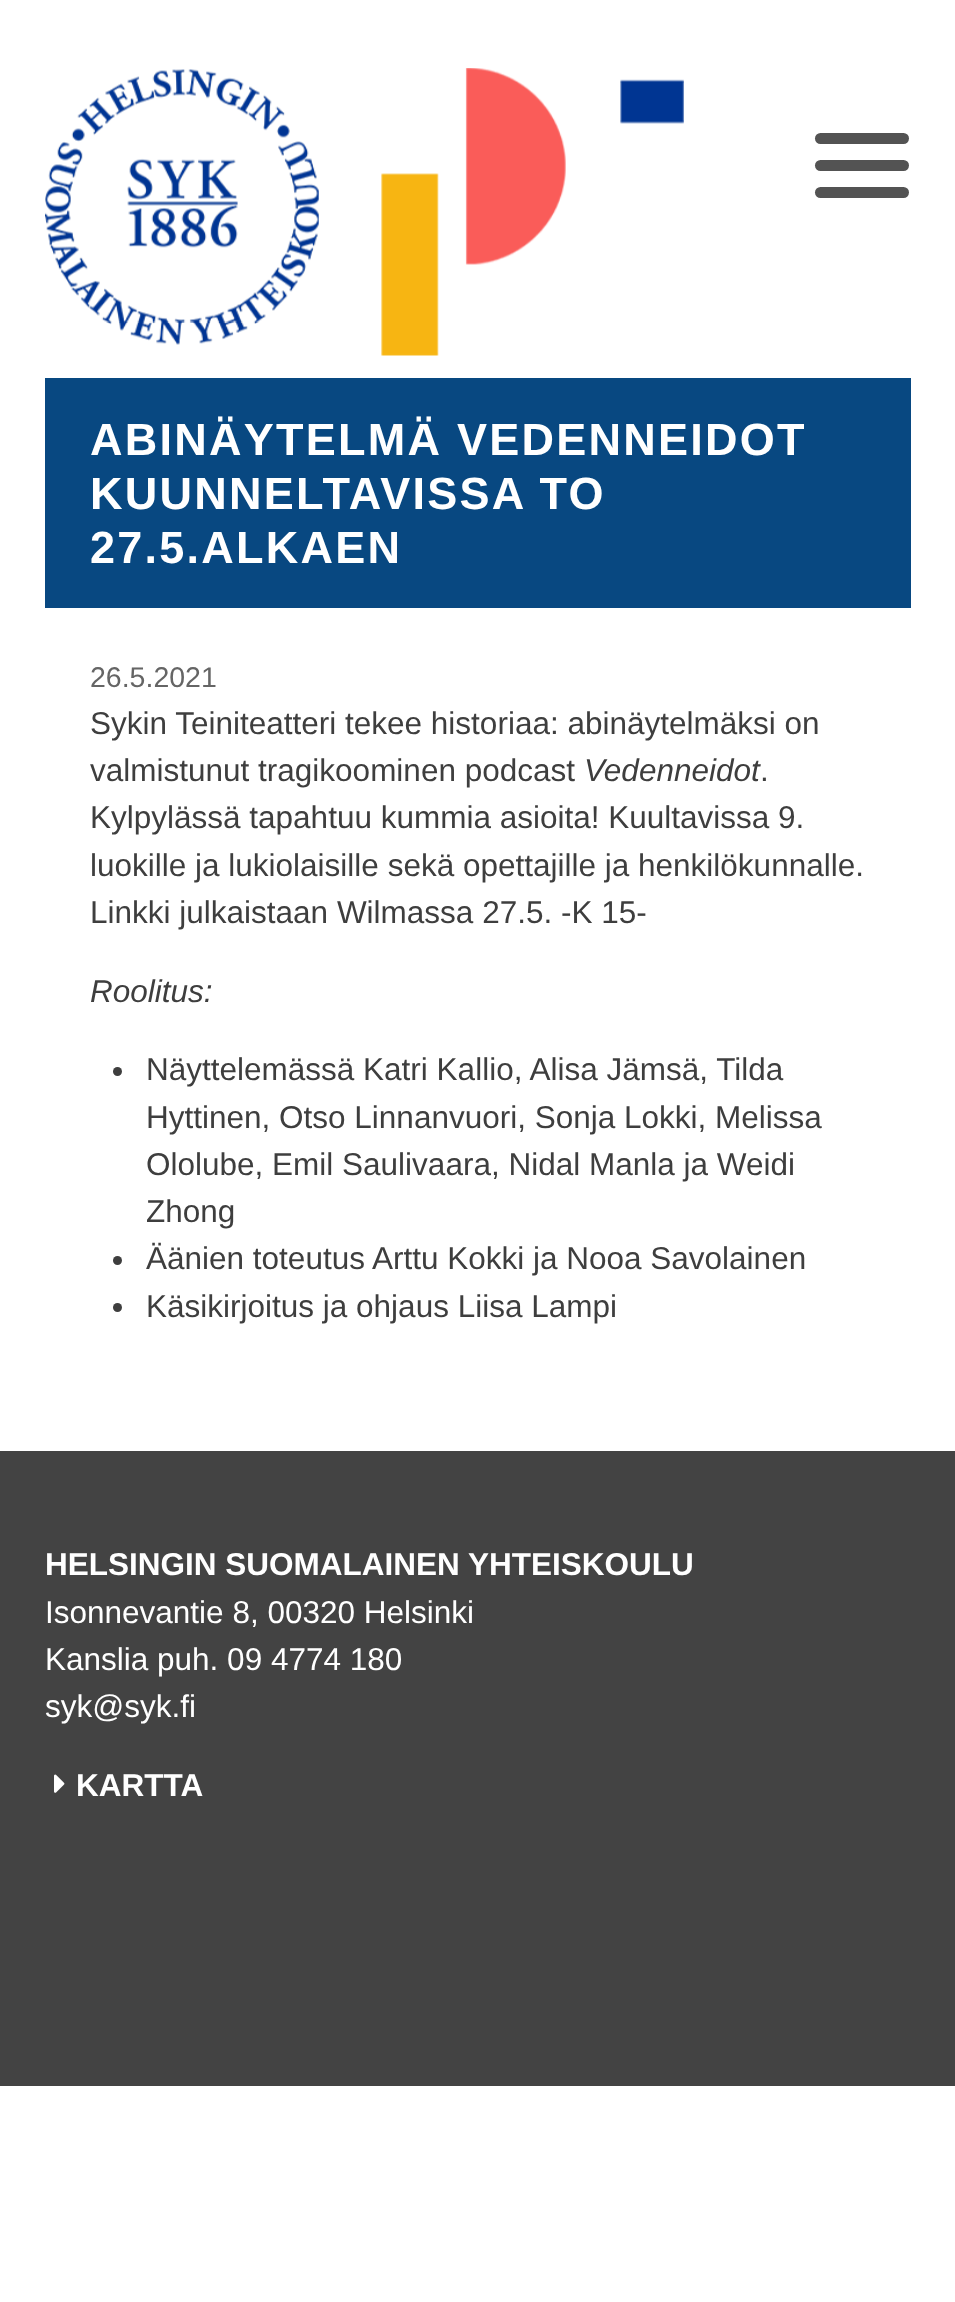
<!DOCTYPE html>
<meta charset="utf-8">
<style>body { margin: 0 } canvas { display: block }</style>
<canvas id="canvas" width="955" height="2302"></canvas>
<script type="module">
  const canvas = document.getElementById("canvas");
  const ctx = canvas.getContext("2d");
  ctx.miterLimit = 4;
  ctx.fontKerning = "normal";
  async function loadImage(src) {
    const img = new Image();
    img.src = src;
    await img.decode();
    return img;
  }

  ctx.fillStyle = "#ffffff";
  ctx.fillRect(0, 0, 955, 2302);
  ctx.drawImage(await loadImage("img1.png"), 45, 68, 639, 288);
  ctx.fillStyle = "#535353";
  ctx.beginPath();
  ctx.roundRect(815, 133, 94, 11, 5.5);
  ctx.fill();
  ctx.beginPath();
  ctx.roundRect(815, 160, 94, 11, 5.5);
  ctx.fill();
  ctx.beginPath();
  ctx.roundRect(815, 187, 94, 11, 5.5);
  ctx.fill();
  ctx.fillStyle = "#084881";
  ctx.fillRect(45, 378, 866, 230);
  ctx.letterSpacing = "2.25px";
  ctx.font = "bold 45px Liberation Sans";
  ctx.fillStyle = "#ffffff";
  ctx.fillText("ABINÄYTELMÄ VEDENNEIDOT", 90, 455);
  ctx.fillText("KUUNNELTAVISSA TO", 90, 509);
  ctx.fillText("27.5.ALKAEN", 90, 563);
  ctx.letterSpacing = "0px";
  ctx.font = "28.5px Liberation Sans";
  ctx.fillStyle = "#656565";
  ctx.fillText("26.5.2021", 90, 687);
  ctx.font = "31.5px Liberation Sans";
  ctx.fillStyle = "#3e3e3e";
  ctx.fillText("Sykin Teiniteatteri tekee historiaa: abinäytelmäksi on", 90, 734);
  ctx.fillText("valmistunut tragikoominen podcast", 90, 781);
  ctx.font = "italic 31.5px Liberation Sans";
  ctx.fillText("Vedenneidot", 584, 781);
  ctx.font = "31.5px Liberation Sans";
  ctx.fillText(".", 760, 781);
  ctx.fillText("Kylpylässä tapahtuu kummia asioita! Kuultavissa 9.", 90, 828);
  ctx.fillText("luokille ja lukiolaisille sekä opettajille ja henkilökunnalle.", 90, 876);
  ctx.fillText("Linkki julkaistaan Wilmassa 27.5. -K 15-", 90, 923);
  ctx.font = "italic 31.5px Liberation Sans";
  ctx.fillText("Roolitus:", 90, 1002);
  ctx.beginPath();
  ctx.arc(117.5, 1071.5, 4.5, 0, Math.PI * 2);
  ctx.fill();
  ctx.font = "31.5px Liberation Sans";
  ctx.fillText("Näyttelemässä Katri Kallio, Alisa Jämsä, Tilda", 146, 1080);
  ctx.fillText("Hyttinen, Otso Linnanvuori, Sonja Lokki, Melissa", 146, 1128);
  ctx.fillText("Ololube, Emil Saulivaara, Nidal Manla ja Weidi", 146, 1175);
  ctx.fillText("Zhong", 146, 1222);
  ctx.beginPath();
  ctx.arc(117.5, 1260.5, 4.5, 0, Math.PI * 2);
  ctx.fill();
  ctx.fillText("Äänien toteutus Arttu Kokki ja Nooa Savolainen", 146, 1269);
  ctx.beginPath();
  ctx.arc(117.5, 1307.5, 4.5, 0, Math.PI * 2);
  ctx.fill();
  ctx.fillText("Käsikirjoitus ja ohjaus Liisa Lampi", 146, 1317);
  ctx.fillStyle = "#434343";
  ctx.fillRect(0, 1451, 955, 635);
  ctx.font = "bold 31.5px Liberation Sans";
  ctx.fillStyle = "#ffffff";
  ctx.fillText("HELSINGIN SUOMALAINEN YHTEISKOULU", 45, 1575);
  ctx.font = "31.5px Liberation Sans";
  ctx.fillText("Isonnevantie 8, 00320 Helsinki", 45, 1623);
  ctx.fillText("Kanslia puh. 09 4774 180", 45, 1670);
  ctx.fillText("syk@syk.fi", 45, 1717);
  ctx.drawImage(await loadImage("img2.png"), 54, 1774, 11, 19);
  ctx.font = "bold 31.5px Liberation Sans";
  ctx.fillText("KARTTA", 76, 1796);
</script>
